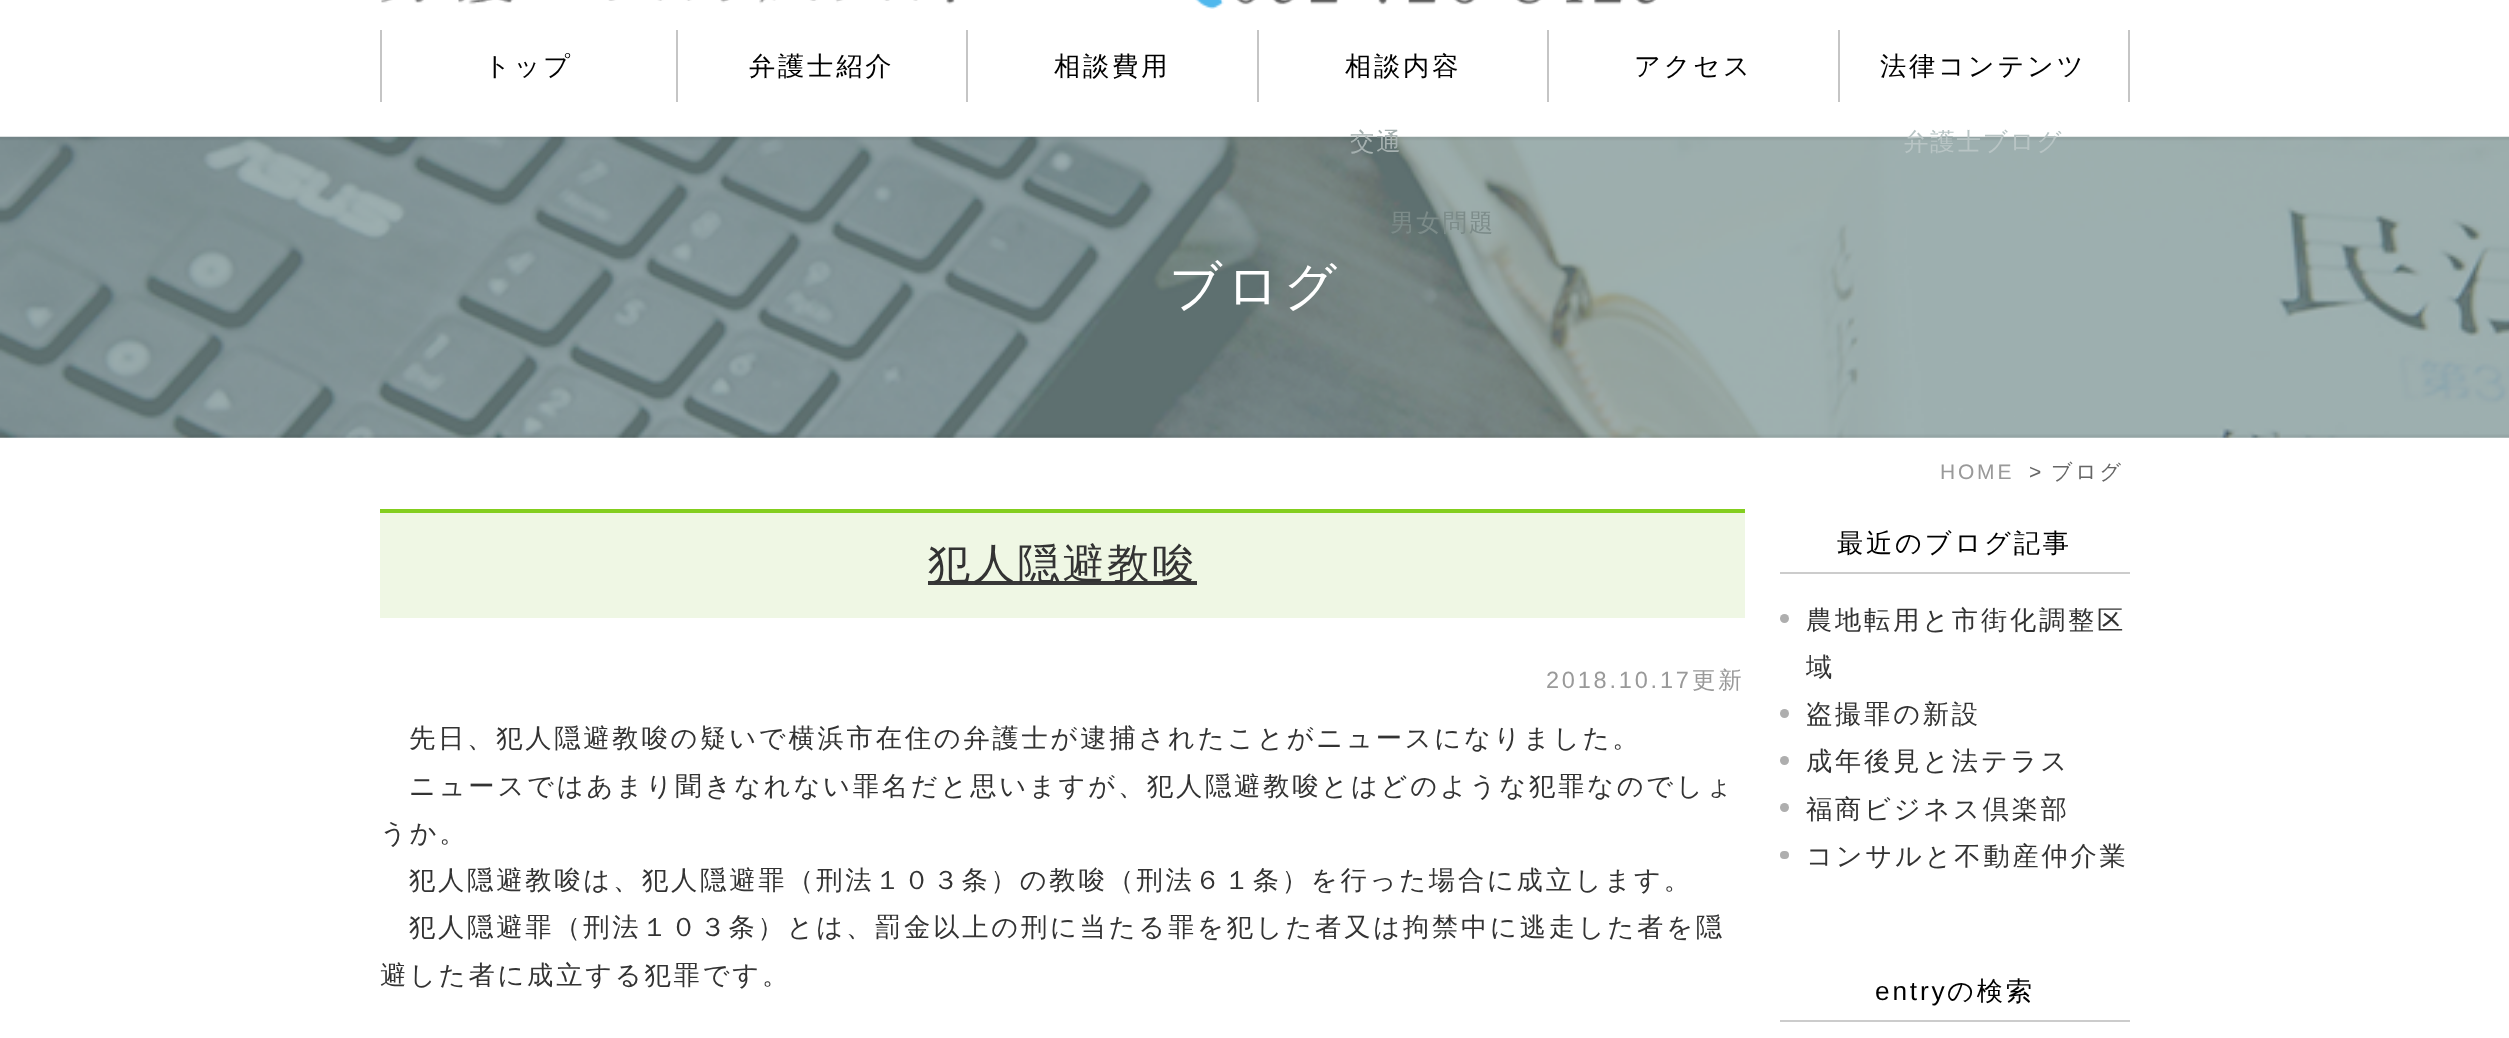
<!DOCTYPE html>
<meta charset="utf-8">
<style>body { margin: 0 } canvas { display: block }</style>
<canvas id="canvas" width="2509" height="1038"></canvas>
<script type="module">
  const canvas = document.getElementById("canvas");
  const ctx = canvas.getContext("2d");
  ctx.miterLimit = 4;
  ctx.fontKerning = "normal";
  async function loadImage(src) {
    const img = new Image();
    img.src = src;
    await img.decode();
    return img;
  }

  ctx.fillStyle = "#ffffff";
  ctx.fillRect(0, 0, 2509, 1038);
  ctx.drawImage(await loadImage("img1.png"), 381, 0, 574, 5);
  ctx.drawImage(await loadImage("img2.png"), 1195, 0, 461, 9);
  ctx.fillStyle = "#c5c5c5";
  ctx.fillRect(676, 30, 2, 72);
  ctx.fillRect(380, 30, 2, 72);
  ctx.letterSpacing = "2.8px";
  ctx.font = "500 26.25px WenQuanYi Zen Hei";
  ctx.fillStyle = "#000000";
  ctx.fillText("トップ", 484, 75);
  ctx.fillStyle = "#c5c5c5";
  ctx.fillRect(966, 30, 2, 72);
  ctx.fillStyle = "#000000";
  ctx.fillText("弁護士紹介", 749, 75);
  ctx.fillStyle = "#c5c5c5";
  ctx.fillRect(1257, 30, 2, 72);
  ctx.fillStyle = "#000000";
  ctx.fillText("相談費用", 1054, 75);
  ctx.fillStyle = "#c5c5c5";
  ctx.fillRect(1547, 30, 2, 72);
  ctx.fillStyle = "#000000";
  ctx.fillText("相談内容", 1345, 75);
  ctx.drawImage(await loadImage("img3.png"), 0, 136, 2509, 302);
  ctx.letterSpacing = "1.75px";
  ctx.font = "500 24.5px WenQuanYi Zen Hei";
  ctx.fillStyle = "#a5b0af";
  ctx.fillText("交通", 1350, 150);
  ctx.fillStyle = "#7c8b89";
  ctx.fillText("男女問題", 1390, 231);
  ctx.fillStyle = "#c5c5c5";
  ctx.fillRect(1838, 30, 2, 72);
  ctx.letterSpacing = "2.8px";
  ctx.font = "500 26.25px WenQuanYi Zen Hei";
  ctx.fillStyle = "#000000";
  ctx.fillText("アクセス", 1634, 75);
  ctx.fillStyle = "#c5c5c5";
  ctx.fillRect(2128, 30, 2, 72);
  ctx.fillStyle = "#000000";
  ctx.fillText("法律コンテンツ", 1880, 75);
  ctx.letterSpacing = "1.75px";
  ctx.font = "500 24.5px WenQuanYi Zen Hei";
  ctx.fillStyle = "#b8c4c4";
  ctx.fillText("弁護士ブログ", 1904, 150);
  ctx.letterSpacing = "3.5px";
  ctx.font = "500 52.5px WenQuanYi Zen Hei";
  ctx.fillStyle = "#ffffff";
  ctx.fillText("ブログ", 1169, 304);
  ctx.letterSpacing = "2.8px";
  ctx.font = "21px Liberation Sans";
  ctx.fillStyle = "#999999";
  ctx.fillText("HOME", 1940, 479);
  ctx.fillStyle = "#666666";
  ctx.fillText(">", 2029, 479);
  ctx.font = "500 21px WenQuanYi Zen Hei";
  ctx.fillText("ブログ", 2051, 479);
  ctx.fillStyle = "#eff7e4";
  ctx.fillRect(380, 513, 1365, 105);
  ctx.fillStyle = "#83ce1e";
  ctx.fillRect(380, 509, 1365, 4);
  ctx.fillStyle = "#383838";
  ctx.fillRect(928, 581, 269, 4);
  ctx.font = "500 42px WenQuanYi Zen Hei";
  ctx.fillStyle = "#333333";
  ctx.fillText("犯人隠避教唆", 928, 578);
  ctx.font = "23.5px Liberation Sans";
  ctx.fillStyle = "#999999";
  ctx.fillText("2018.10.17", 1546, 688);
  ctx.font = "500 23.5px WenQuanYi Zen Hei";
  ctx.fillText("更新", 1692, 688);
  ctx.font = "500 26.25px WenQuanYi Zen Hei";
  ctx.fillStyle = "#333333";
  ctx.fillText("先日、犯人隠避教唆の疑いで横浜市在住の弁護士が逮捕されたことがニュースになりました。", 409, 747);
  ctx.fillText("ニュースではあまり聞きなれない罪名だと思いますが、犯人隠避教唆とはどのような犯罪なのでしょ", 409, 795);
  ctx.fillText("うか。", 380, 842);
  ctx.fillText("犯人隠避教唆は、犯人隠避罪（刑法１０３条）の教唆（刑法６１条）を行った場合に成立します。", 409, 889);
  ctx.fillText("犯人隠避罪（刑法１０３条）とは、罰金以上の刑に当たる罪を犯した者又は拘禁中に逃走した者を隠", 409, 936);
  ctx.fillText("避した者に成立する犯罪です。", 380, 984);
  ctx.fillStyle = "#cccccc";
  ctx.fillRect(1780, 572, 350, 2);
  ctx.fillStyle = "#000000";
  ctx.fillText("最近のブログ記事", 1837, 552);
  ctx.fillStyle = "#aeaeae";
  ctx.beginPath();
  ctx.arc(1784.5, 618.5, 4.5, 0, Math.PI * 2);
  ctx.fill();
  ctx.fillStyle = "#333333";
  ctx.fillText("農地転用と市街化調整区", 1806, 629);
  ctx.fillText("域", 1806, 676);
  ctx.fillStyle = "#aeaeae";
  ctx.beginPath();
  ctx.arc(1784.5, 713.5, 4.5, 0, Math.PI * 2);
  ctx.fill();
  ctx.fillStyle = "#333333";
  ctx.fillText("盗撮罪の新設", 1806, 723);
  ctx.fillStyle = "#aeaeae";
  ctx.beginPath();
  ctx.arc(1784.5, 760.5, 4.5, 0, Math.PI * 2);
  ctx.fill();
  ctx.fillStyle = "#333333";
  ctx.fillText("成年後見と法テラス", 1806, 770);
  ctx.fillStyle = "#aeaeae";
  ctx.beginPath();
  ctx.arc(1784.5, 807.5, 4.5, 0, Math.PI * 2);
  ctx.fill();
  ctx.fillStyle = "#333333";
  ctx.fillText("福商ビジネス倶楽部", 1806, 818);
  ctx.fillStyle = "#aeaeae";
  ctx.beginPath();
  ctx.roundRect(1780, 851, 9, 8, 4);
  ctx.fill();
  ctx.fillStyle = "#333333";
  ctx.fillText("コンサルと不動産仲介業", 1806, 865);
  ctx.fillStyle = "#cccccc";
  ctx.fillRect(1780, 1020, 350, 2);
  ctx.font = "26.25px Liberation Sans";
  ctx.fillStyle = "#000000";
  ctx.fillText("entry", 1875, 1000);
  ctx.font = "500 26.25px WenQuanYi Zen Hei";
  ctx.fillText("の検索", 1947, 1000);
</script>
